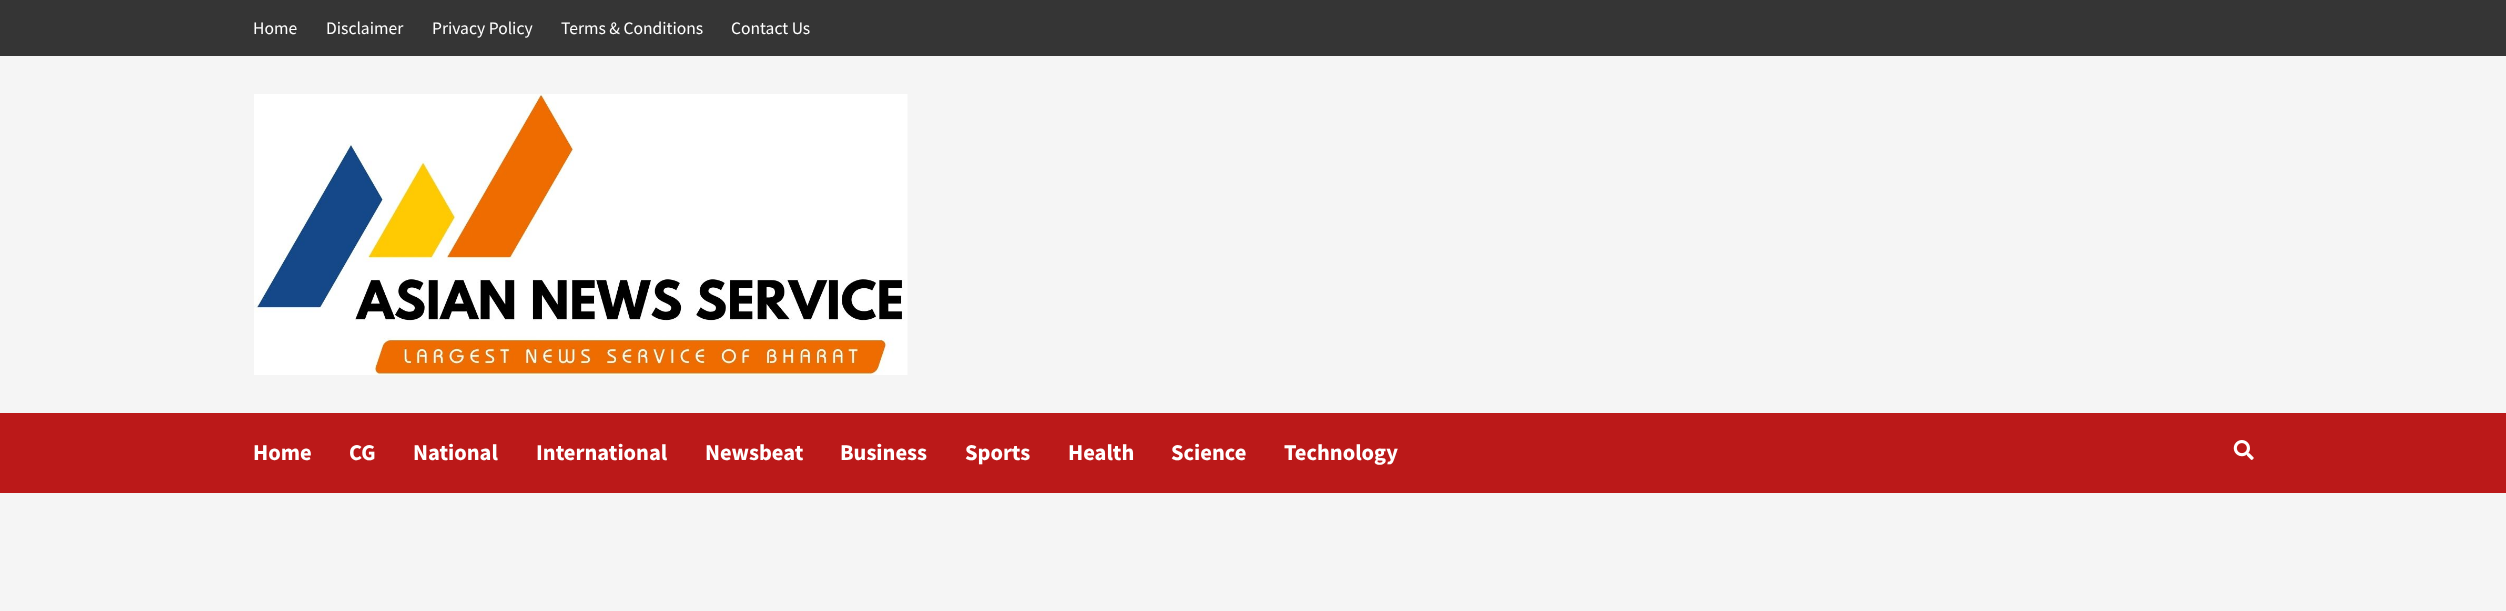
<!DOCTYPE html>
<meta charset="utf-8">
<style>body { margin: 0 } canvas { display: block }</style>
<canvas id="canvas" width="2506" height="611"></canvas>
<script type="module">
  const canvas = document.getElementById("canvas");
  const ctx = canvas.getContext("2d");
  ctx.miterLimit = 4;
  ctx.fontKerning = "normal";
  async function loadImage(src) {
    const img = new Image();
    img.src = src;
    await img.decode();
    return img;
  }

  ctx.fillStyle = "#f5f5f5";
  ctx.fillRect(0, 0, 2506, 611);
  ctx.fillStyle = "#353535";
  ctx.fillRect(0, 0, 2506, 56);
  ctx.font = "17.5px Source Sans Pro";
  ctx.fillStyle = "#ffffff";
  ctx.fillText("Home", 253, 34);
  ctx.fillText("Disclaimer", 326, 34);
  ctx.fillText("Privacy Policy", 432, 34);
  ctx.fillText("Terms & Conditions", 561, 34);
  ctx.fillText("Contact Us", 731, 34);
  ctx.drawImage(await loadImage("img1.png"), 254, 94, 654, 281);
  ctx.fillStyle = "#bb1919";
  ctx.fillRect(0, 413, 2506, 80);
  ctx.font = "bold 22.5px Source Sans Pro";
  ctx.fillStyle = "#ffffff";
  ctx.fillText("Home", 253, 460);
  ctx.fillText("CG", 349, 460);
  ctx.fillText("National", 413, 460);
  ctx.fillText("International", 536, 460);
  ctx.fillText("Newsbeat", 705, 460);
  ctx.fillText("Business", 840, 460);
  ctx.fillText("Sports", 965, 460);
  ctx.fillText("Health", 1068, 460);
  ctx.fillText("Science", 1171, 460);
  ctx.fillText("Technology", 1284, 460);
  ctx.drawImage(await loadImage("img2.png"), 2233, 440, 21, 20);
</script>
